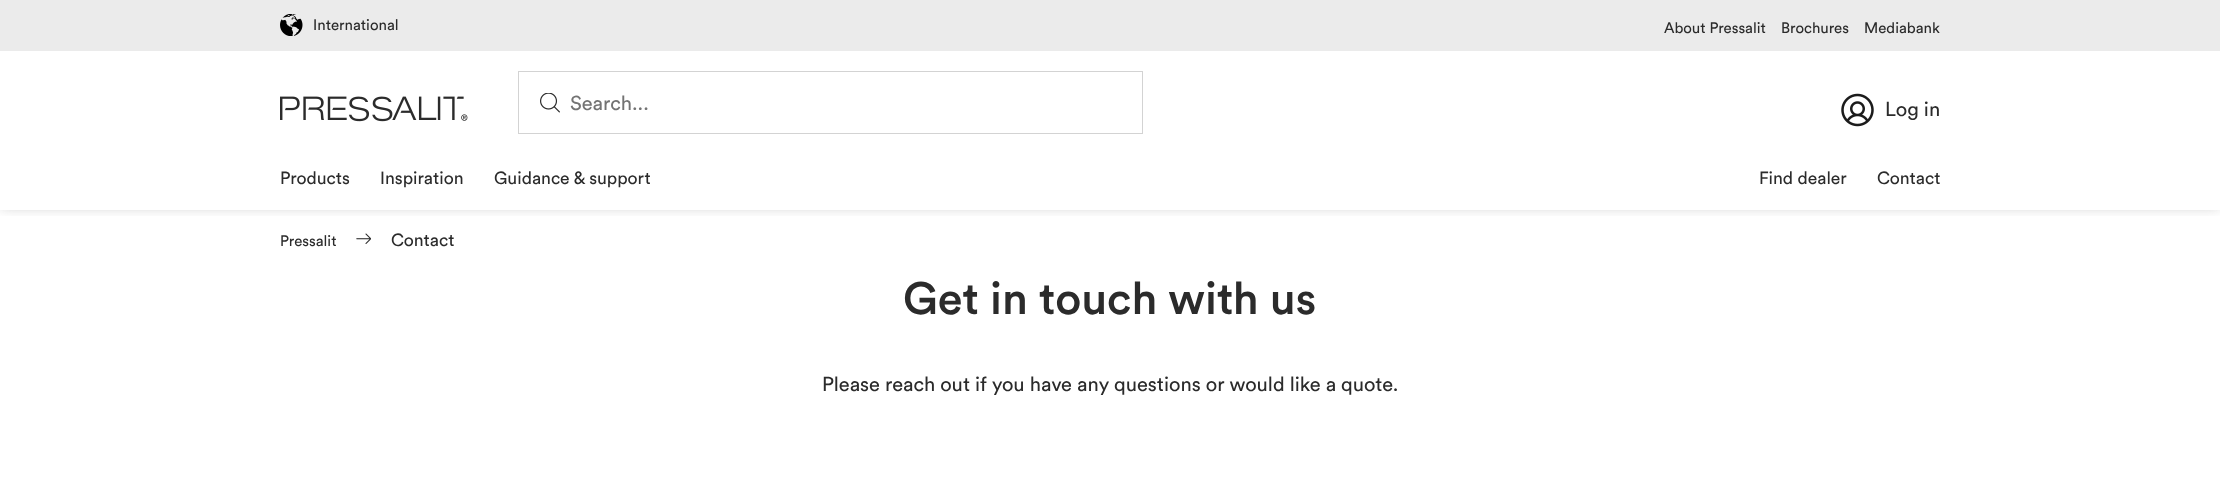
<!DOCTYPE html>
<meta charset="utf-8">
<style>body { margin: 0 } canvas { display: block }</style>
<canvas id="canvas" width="2220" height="486"></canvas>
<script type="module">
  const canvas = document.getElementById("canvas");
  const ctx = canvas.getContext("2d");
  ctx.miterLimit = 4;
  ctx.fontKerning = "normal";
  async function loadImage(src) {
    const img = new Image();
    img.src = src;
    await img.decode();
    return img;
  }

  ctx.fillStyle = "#ffffff";
  ctx.fillRect(0, 0, 2220, 486);
  ctx.save();
  ctx.beginPath();
  ctx.rect(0, 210, 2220, 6);
  ctx.clip();
  ctx.fillStyle = "rgba(43, 43, 43, 0.3)";
  ctx.filter = "blur(7px)";
  ctx.beginPath();
  ctx.rect(0, -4, 2220, 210);
  ctx.fill();
  ctx.filter = "none";
  ctx.restore();
  ctx.fillStyle = "#ebebeb";
  ctx.fillRect(0, 0, 2220, 51);
  ctx.drawImage(await loadImage("img1.png"), 280, 14, 23, 22);
  ctx.font = "15px Circular";
  ctx.fillStyle = "#2b2b2b";
  ctx.fillText("International", 313, 30);
  ctx.fillText("About Pressalit", 1664, 33);
  ctx.fillText("Brochures", 1781, 33);
  ctx.fillText("Mediabank", 1864, 33);
  ctx.drawImage(await loadImage("img2.png"), 280, 96, 188, 26);
  ctx.strokeStyle = "#d3d3d3";
  ctx.strokeRect(518.5, 71.5, 624, 62);
  ctx.drawImage(await loadImage("img3.png"), 540, 93, 20, 20);
  ctx.font = "20px Circular";
  ctx.fillStyle = "#737373";
  ctx.fillText("Search...", 570, 110);
  ctx.drawImage(await loadImage("img4.png"), 1841, 93, 33, 34);
  ctx.fillStyle = "#2b2b2b";
  ctx.fillText("Log in", 1885, 116);
  ctx.font = "17.5px Circular";
  ctx.fillText("Products", 280, 184);
  ctx.fillText("Inspiration", 380, 184);
  ctx.fillText("Guidance & support", 494, 184);
  ctx.fillText("Find dealer", 1759, 184);
  ctx.fillText("Contact", 1877, 184);
  ctx.font = "15px Circular";
  ctx.fillText("Pressalit", 280, 246);
  ctx.drawImage(await loadImage("img5.png"), 356, 233, 15, 11);
  ctx.font = "17.5px Circular";
  ctx.fillText("Contact", 391, 246);
  ctx.font = "500 45px Circular";
  ctx.fillText("Get in touch with us", 903, 314);
  ctx.font = "20px Circular";
  ctx.fillText("Please reach out if you have any questions or would like a quote.", 822, 391);
</script>
